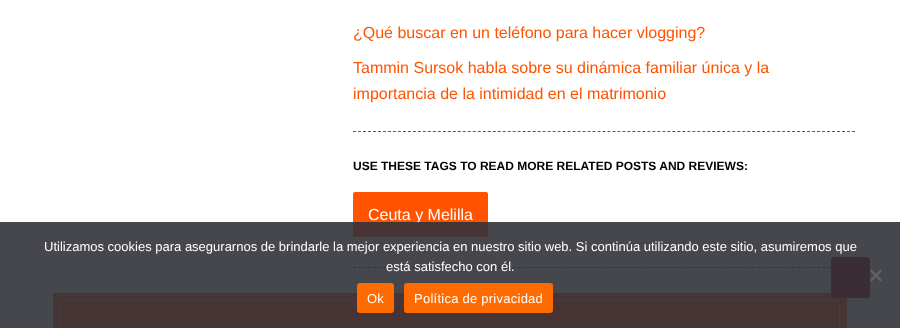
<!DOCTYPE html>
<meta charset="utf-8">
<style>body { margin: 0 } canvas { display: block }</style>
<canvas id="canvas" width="900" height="328"></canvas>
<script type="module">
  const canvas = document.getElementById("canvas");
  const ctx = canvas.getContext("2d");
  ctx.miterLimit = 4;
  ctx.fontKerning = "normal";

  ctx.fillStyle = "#ffffff";
  ctx.fillRect(0, 0, 900, 328);
  ctx.font = "16px Liberation Sans";
  ctx.fillStyle = "#ff5300";
  ctx.fillText("¿Qué buscar en un teléfono para hacer vlogging?", 353, 38);
  ctx.fillText("Tammin Sursok habla sobre su dinámica familiar única y la", 353, 73);
  ctx.fillText("importancia de la intimidad en el matrimonio", 353, 99);
  ctx.beginPath();
  ctx.moveTo(353, 131.5);
  ctx.lineTo(855, 131.5);
  ctx.strokeStyle = "#1f6aa4";
  ctx.setLineDash([3, 1.99]);
  ctx.stroke();
  ctx.beginPath();
  ctx.moveTo(353, 267.5);
  ctx.lineTo(855, 267.5);
  ctx.stroke();
  ctx.font = "bold 12px Liberation Sans";
  ctx.fillStyle = "#000000";
  ctx.fillText("USE THESE TAGS TO READ MORE RELATED POSTS AND REVIEWS:", 353, 170);
  ctx.fillStyle = "#ff5300";
  ctx.beginPath();
  ctx.roundRect(353, 192, 135, 45, 2);
  ctx.fill();
  ctx.font = "16px Liberation Sans";
  ctx.fillStyle = "#ffffff";
  ctx.fillText("Ceuta y Melilla", 368, 220);
  ctx.fillStyle = "#ff5300";
  ctx.fillRect(53, 293, 794, 35);
  ctx.strokeStyle = "#ffa77d";
  ctx.setLineDash([]);
  ctx.strokeRect(60.5, 300.5, 779, 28);
  ctx.fillStyle = "#8c0000";
  ctx.beginPath();
  ctx.roundRect(831, 257, 39, 41, 3);
  ctx.fill();
  ctx.fillStyle = "rgba(50, 50, 58, 0.9)";
  ctx.fillRect(0, 222, 900, 106);
  ctx.font = "13px Liberation Sans";
  ctx.fillStyle = "#ffffff";
  ctx.fillText("Utilizamos cookies para asegurarnos de brindarle la mejor experiencia en nuestro sitio web. Si continúa utilizando este sitio, asumiremos que", 44, 251);
  ctx.fillText("está satisfecho con él.", 386, 271);
  ctx.fillStyle = "#636367";
  ctx.beginPath();
  ctx.moveTo(880.5, 269.5);
  ctx.lineTo(882, 271);
  ctx.lineTo(871.5, 281.5);
  ctx.lineTo(870, 280);
  ctx.closePath();
  ctx.fill();
  ctx.beginPath();
  ctx.moveTo(870, 271);
  ctx.lineTo(871.5, 269.5);
  ctx.lineTo(882, 280);
  ctx.lineTo(880.5, 281.5);
  ctx.closePath();
  ctx.fill();
  ctx.fillStyle = "#ff6b00";
  ctx.beginPath();
  ctx.roundRect(357, 283, 37, 30, 3);
  ctx.fill();
  ctx.letterSpacing = "0.25px";
  ctx.fillStyle = "#ffffff";
  ctx.fillText("Ok", 367, 303);
  ctx.fillStyle = "#ff6b00";
  ctx.beginPath();
  ctx.roundRect(404, 283, 149, 30, 3);
  ctx.fill();
  ctx.fillStyle = "#ffffff";
  ctx.fillText("Política de privacidad", 414, 303);
</script>
